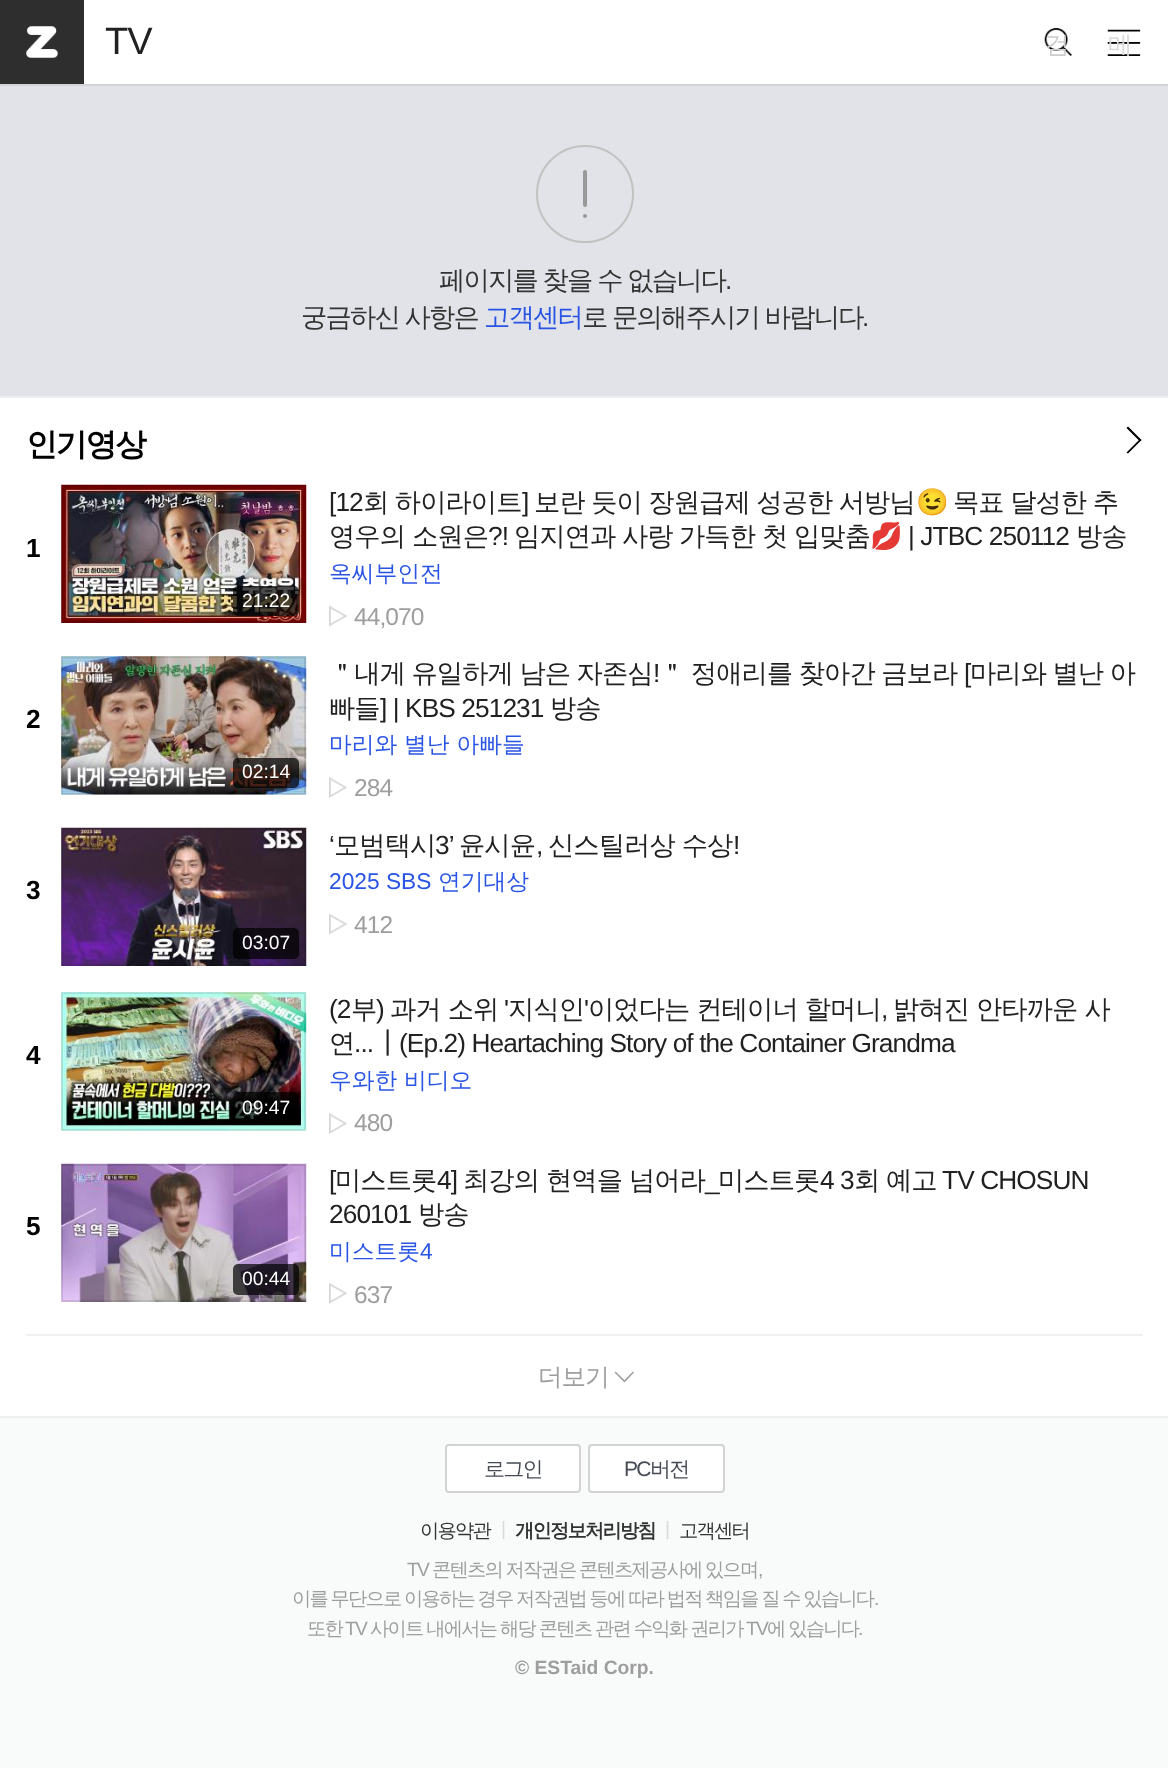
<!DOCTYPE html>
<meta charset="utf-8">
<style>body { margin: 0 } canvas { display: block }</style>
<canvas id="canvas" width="1168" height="1768"></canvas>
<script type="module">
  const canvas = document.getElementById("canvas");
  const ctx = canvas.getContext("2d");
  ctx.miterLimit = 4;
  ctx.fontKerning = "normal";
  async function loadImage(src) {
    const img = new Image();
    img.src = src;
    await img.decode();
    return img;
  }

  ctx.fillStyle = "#f9fafa";
  ctx.fillRect(0, 0, 1168, 1768);
  ctx.fillStyle = "#ffffff";
  ctx.fillRect(84, 0, 1084, 84);
  ctx.fillStyle = "#2e2e2e";
  ctx.fillRect(0, 0, 84, 84);
  ctx.drawImage(await loadImage("img1.png"), 26, 26, 32, 32);
  ctx.letterSpacing = "-1px";
  ctx.font = "38px Liberation Sans";
  ctx.fillStyle = "#212121";
  ctx.fillText("TV", 105, 54);
  ctx.drawImage(await loadImage("img2.png"), 1044, 28, 28, 28);
  ctx.save();
  ctx.beginPath();
  ctx.rect(1045, 28, 28, 28);
  ctx.clip();
  ctx.letterSpacing = "0px";
  ctx.font = "500 24.5px WenQuanYi Zen Hei";
  ctx.fillStyle = "#cdcdcd";
  ctx.fillText("검", 1045, 53);
  ctx.restore();
  ctx.drawImage(await loadImage("img3.png"), 1107, 29, 34, 27);
  ctx.letterSpacing = "0px";
  ctx.wordSpacing = "-1px";
  ctx.font = "500 24.5px WenQuanYi Zen Hei";
  ctx.fillStyle = "#dadada";
  ctx.fillText("메", 1108, 53);
  ctx.fillStyle = "#d2d4d8";
  ctx.fillRect(0, 84, 1168, 2);
  ctx.fillStyle = "#e1e3e8";
  ctx.fillRect(0, 86, 1168, 310);
  ctx.beginPath();
  ctx.arc(585, 194, 48, 0, Math.PI * 2);
  ctx.strokeStyle = "#c2c2c2";
  ctx.lineWidth = 2;
  ctx.stroke();
  ctx.fillStyle = "#999999";
  ctx.beginPath();
  ctx.roundRect(583, 170, 4, 37, 2);
  ctx.fill();
  ctx.beginPath();
  ctx.arc(585, 216, 2, 0, Math.PI * 2);
  ctx.fill();
  ctx.letterSpacing = "-1.75px";
  ctx.wordSpacing = "-0.5px";
  ctx.font = "500 26.25px WenQuanYi Zen Hei";
  ctx.fillStyle = "#333333";
  ctx.fillText("페이지를 찾을 수 없습니다", 439, 289);
  ctx.wordSpacing = "0px";
  ctx.font = "26.25px Liberation Sans";
  ctx.fillText(".", 725, 289);
  ctx.wordSpacing = "-0.5px";
  ctx.font = "500 26.25px WenQuanYi Zen Hei";
  ctx.fillText("궁금하신 사항은", 301, 326);
  ctx.wordSpacing = "0px";
  ctx.fillStyle = "#2a55e4";
  ctx.fillText("고객센터", 484, 326);
  ctx.wordSpacing = "-0.5px";
  ctx.fillStyle = "#333333";
  ctx.fillText("로 문의해주시기 바랍니다", 582, 326);
  ctx.wordSpacing = "0px";
  ctx.font = "26.25px Liberation Sans";
  ctx.fillText(".", 862, 326);
  ctx.fillStyle = "#ffffff";
  ctx.fillRect(0, 398, 1168, 1018);
  ctx.fillStyle = "#edf0f0";
  ctx.fillRect(0, 396, 1168, 2);
  ctx.font = "bold 31.5px WenQuanYi Zen Hei";
  ctx.fillStyle = "#000000";
  ctx.fillText("인기영상", 26, 455);
  ctx.beginPath();
  ctx.moveTo(1126.5, 428);
  ctx.lineTo(1128, 426.5);
  ctx.lineTo(1141.5, 440);
  ctx.lineTo(1140, 441.5);
  ctx.closePath();
  ctx.fill();
  ctx.beginPath();
  ctx.moveTo(1126.5, 452.5);
  ctx.lineTo(1140, 439);
  ctx.lineTo(1141.5, 440);
  ctx.lineTo(1128, 453.5);
  ctx.closePath();
  ctx.fill();
  ctx.font = "bold 26.25px Liberation Sans";
  ctx.fillText("1", 26, 557);
  ctx.letterSpacing = "-0.9px";
  ctx.font = "26.25px Liberation Sans";
  ctx.fillStyle = "#212121";
  ctx.fillText("[12", 329, 511);
  ctx.wordSpacing = "-0.5px";
  ctx.font = "500 26.25px WenQuanYi Zen Hei";
  ctx.fillText("회 하이라이트", 363, 511);
  ctx.wordSpacing = "0px";
  ctx.font = "26.25px Liberation Sans";
  ctx.fillText("]", 522, 511);
  ctx.wordSpacing = "-0.5px";
  ctx.font = "500 26.25px WenQuanYi Zen Hei";
  ctx.fillText("보란 듯이 장원급제 성공한 서방님", 534, 511);
  ctx.wordSpacing = "0px";
  ctx.font = "26.25px Noto Color Emoji";
  ctx.fillText("😉", 916, 511);
  ctx.wordSpacing = "-0.5px";
  ctx.font = "500 26.25px WenQuanYi Zen Hei";
  ctx.fillText("목표 달성한 추", 953, 511);
  ctx.wordSpacing = "0px";
  ctx.fillText("영우의", 329, 545);
  ctx.fillText("소원은", 412, 545);
  ctx.font = "26.25px Liberation Sans";
  ctx.fillText("?!", 488, 545);
  ctx.font = "500 26.25px WenQuanYi Zen Hei";
  ctx.fillText("임지연과", 514, 545);
  ctx.fillText("사랑", 622, 545);
  ctx.fillText("가득한", 679, 545);
  ctx.fillText("첫", 762, 545);
  ctx.fillText("입맞춤", 794, 545);
  ctx.font = "26.25px Noto Color Emoji";
  ctx.fillText("💋", 870, 545);
  ctx.font = "26.25px Liberation Sans";
  ctx.fillText("| JTBC 250112", 908, 545);
  ctx.font = "500 26.25px WenQuanYi Zen Hei";
  ctx.fillText("방송", 1076, 545);
  ctx.letterSpacing = "0px";
  ctx.font = "500 22.75px WenQuanYi Zen Hei";
  ctx.fillStyle = "#2a55e4";
  ctx.fillText("옥씨부인전", 329, 581);
  ctx.drawImage(await loadImage("img4.png"), 329, 605, 19, 22);
  ctx.letterSpacing = "-0.9px";
  ctx.font = "24.5px Liberation Sans";
  ctx.fillStyle = "#9e9e9e";
  ctx.fillText("44,070", 354, 625);
  ctx.drawImage(await loadImage("img5.png"), 61, 484, 246, 139);
  ctx.strokeStyle = "rgba(0, 0, 0, 0.1)";
  ctx.strokeRect(62, 486, 243, 136);
  ctx.fillStyle = "rgba(0, 0, 0, 0.7)";
  ctx.beginPath();
  ctx.roundRect(233, 586, 66, 30, 5);
  ctx.fill();
  ctx.letterSpacing = "0px";
  ctx.font = "19.25px Liberation Sans";
  ctx.fillStyle = "#ffffff";
  ctx.fillText("21:22", 242, 607);
  ctx.letterSpacing = "-1.75px";
  ctx.font = "bold 26.25px Liberation Sans";
  ctx.fillStyle = "#000000";
  ctx.fillText("2", 26, 728);
  ctx.letterSpacing = "-0.9px";
  ctx.wordSpacing = "-0.5px";
  ctx.font = "500 26.25px WenQuanYi Zen Hei";
  ctx.fillStyle = "#212121";
  ctx.fillText("＂내게 유일하게 남은 자존심", 329, 682);
  ctx.wordSpacing = "0px";
  ctx.font = "26.25px Liberation Sans";
  ctx.fillText("!", 653, 682);
  ctx.wordSpacing = "-0.5px";
  ctx.font = "500 26.25px WenQuanYi Zen Hei";
  ctx.fillText("＂ 정애리를 찾아간 금보라", 659, 682);
  ctx.wordSpacing = "0px";
  ctx.font = "26.25px Liberation Sans";
  ctx.fillText("[", 964, 682);
  ctx.wordSpacing = "-0.5px";
  ctx.font = "500 26.25px WenQuanYi Zen Hei";
  ctx.fillText("마리와 별난 아", 970, 682);
  ctx.wordSpacing = "0px";
  ctx.fillText("빠들", 329, 717);
  ctx.font = "26.25px Liberation Sans";
  ctx.fillText("] | KBS 251231", 380, 717);
  ctx.font = "500 26.25px WenQuanYi Zen Hei";
  ctx.fillText("방송", 550, 717);
  ctx.letterSpacing = "0px";
  ctx.font = "500 22.75px WenQuanYi Zen Hei";
  ctx.fillStyle = "#2a55e4";
  ctx.fillText("마리와 별난 아빠들", 329, 752);
  ctx.drawImage(await loadImage("img6.png"), 329, 777, 19, 21);
  ctx.letterSpacing = "-0.9px";
  ctx.font = "24.5px Liberation Sans";
  ctx.fillStyle = "#9e9e9e";
  ctx.fillText("284", 354, 796);
  ctx.drawImage(await loadImage("img7.png"), 61, 656, 246, 139);
  ctx.strokeRect(62, 657, 243, 137);
  ctx.fillStyle = "rgba(0, 0, 0, 0.7)";
  ctx.beginPath();
  ctx.roundRect(233, 758, 66, 30, 5);
  ctx.fill();
  ctx.letterSpacing = "0px";
  ctx.font = "19.25px Liberation Sans";
  ctx.fillStyle = "#ffffff";
  ctx.fillText("02:14", 242, 778);
  ctx.letterSpacing = "-1.75px";
  ctx.font = "bold 26.25px Liberation Sans";
  ctx.fillStyle = "#000000";
  ctx.fillText("3", 26, 899);
  ctx.letterSpacing = "-0.9px";
  ctx.font = "26.25px Liberation Sans";
  ctx.fillStyle = "#212121";
  ctx.fillText("‘", 329, 854);
  ctx.font = "500 26.25px WenQuanYi Zen Hei";
  ctx.fillText("모범택시", 334, 854);
  ctx.font = "26.25px Liberation Sans";
  ctx.fillText("3’", 435, 854);
  ctx.font = "500 26.25px WenQuanYi Zen Hei";
  ctx.fillText("윤시윤", 459, 854);
  ctx.font = "26.25px Liberation Sans";
  ctx.fillText(",", 536, 854);
  ctx.font = "500 26.25px WenQuanYi Zen Hei";
  ctx.fillText("신스틸러상 수상", 548, 854);
  ctx.font = "26.25px Liberation Sans";
  ctx.fillText("!", 733, 854);
  ctx.letterSpacing = "0px";
  ctx.font = "22.75px Liberation Sans";
  ctx.fillStyle = "#2a55e4";
  ctx.fillText("2025 SBS", 329, 889);
  ctx.font = "500 22.75px WenQuanYi Zen Hei";
  ctx.fillText("연기대상", 438, 889);
  ctx.drawImage(await loadImage("img4.png"), 329, 913, 19, 22);
  ctx.letterSpacing = "-0.9px";
  ctx.font = "24.5px Liberation Sans";
  ctx.fillStyle = "#9e9e9e";
  ctx.fillText("412", 354, 933);
  ctx.drawImage(await loadImage("img8.png"), 61, 827, 246, 139);
  ctx.strokeRect(62, 829, 243, 136);
  ctx.fillStyle = "rgba(0, 0, 0, 0.7)";
  ctx.beginPath();
  ctx.roundRect(233, 928, 66, 31, 5);
  ctx.fill();
  ctx.letterSpacing = "0px";
  ctx.font = "19.25px Liberation Sans";
  ctx.fillStyle = "#ffffff";
  ctx.fillText("03:07", 242, 949);
  ctx.letterSpacing = "-1.75px";
  ctx.font = "bold 26.25px Liberation Sans";
  ctx.fillStyle = "#000000";
  ctx.fillText("4", 26, 1064);
  ctx.letterSpacing = "-0.9px";
  ctx.font = "26.25px Liberation Sans";
  ctx.fillStyle = "#212121";
  ctx.fillText("(2", 329, 1018);
  ctx.font = "500 26.25px WenQuanYi Zen Hei";
  ctx.fillText("부", 351, 1018);
  ctx.font = "26.25px Liberation Sans";
  ctx.fillText(")", 376, 1018);
  ctx.font = "500 26.25px WenQuanYi Zen Hei";
  ctx.fillText("과거 소위", 390, 1018);
  ctx.font = "26.25px Liberation Sans";
  ctx.fillText("'", 504, 1018);
  ctx.font = "500 26.25px WenQuanYi Zen Hei";
  ctx.fillText("지식인", 508, 1018);
  ctx.font = "26.25px Liberation Sans";
  ctx.fillText("'", 584, 1018);
  ctx.font = "500 26.25px WenQuanYi Zen Hei";
  ctx.fillText("이었다는 컨테이너 할머니", 588, 1018);
  ctx.fillText("밝혀진 안타까운 사", 893, 1018);
  ctx.font = "26.25px Liberation Sans";
  ctx.fillText(",", 881, 1018);
  ctx.font = "500 26.25px WenQuanYi Zen Hei";
  ctx.fillText("연", 329, 1052);
  ctx.font = "26.25px Liberation Sans";
  ctx.fillText("...", 354, 1052);
  ctx.font = "500 26.25px WenQuanYi Zen Hei";
  ctx.fillText("┃", 374, 1052);
  ctx.font = "26.25px Liberation Sans";
  ctx.fillText("(Ep.2) Heartaching Story of the Container Grandma", 399, 1052);
  ctx.letterSpacing = "0px";
  ctx.font = "500 22.75px WenQuanYi Zen Hei";
  ctx.fillStyle = "#2a55e4";
  ctx.fillText("우와한 비디오", 329, 1088);
  ctx.drawImage(await loadImage("img6.png"), 329, 1113, 19, 21);
  ctx.letterSpacing = "-0.9px";
  ctx.font = "24.5px Liberation Sans";
  ctx.fillStyle = "#9e9e9e";
  ctx.fillText("480", 354, 1131);
  ctx.drawImage(await loadImage("img9.png"), 61, 992, 246, 139);
  ctx.strokeRect(62, 993, 243, 137);
  ctx.fillStyle = "rgba(0, 0, 0, 0.7)";
  ctx.beginPath();
  ctx.roundRect(233, 1092, 66, 32, 5);
  ctx.fill();
  ctx.letterSpacing = "0px";
  ctx.font = "19.25px Liberation Sans";
  ctx.fillStyle = "#ffffff";
  ctx.fillText("09:47", 242, 1114);
  ctx.letterSpacing = "-1.75px";
  ctx.font = "bold 26.25px Liberation Sans";
  ctx.fillStyle = "#000000";
  ctx.fillText("5", 26, 1235);
  ctx.letterSpacing = "-0.9px";
  ctx.font = "26.25px Liberation Sans";
  ctx.fillStyle = "#212121";
  ctx.fillText("[", 329, 1189);
  ctx.font = "500 26.25px WenQuanYi Zen Hei";
  ctx.fillText("미스트롯", 335, 1189);
  ctx.font = "26.25px Liberation Sans";
  ctx.fillText("4]", 437, 1189);
  ctx.font = "500 26.25px WenQuanYi Zen Hei";
  ctx.fillText("최강의", 463, 1189);
  ctx.fillText("현역을", 546, 1189);
  ctx.fillText("넘어라", 629, 1189);
  ctx.fillText("미스트롯", 718, 1189);
  ctx.font = "26.25px Liberation Sans";
  ctx.fillText("4 3", 820, 1189);
  ctx.font = "500 26.25px WenQuanYi Zen Hei";
  ctx.fillText("회", 854, 1189);
  ctx.fillText("예고", 886, 1189);
  ctx.font = "26.25px Liberation Sans";
  ctx.fillText("TV CHOSUN", 942, 1189);
  ctx.fillText("_", 705, 1189);
  ctx.fillText("260101", 329, 1223);
  ctx.font = "500 26.25px WenQuanYi Zen Hei";
  ctx.fillText("방송", 418, 1223);
  ctx.letterSpacing = "0px";
  ctx.font = "500 22.75px WenQuanYi Zen Hei";
  ctx.fillStyle = "#2a55e4";
  ctx.fillText("미스트롯", 329, 1259);
  ctx.font = "22.75px Liberation Sans";
  ctx.fillText("4", 420, 1259);
  ctx.drawImage(await loadImage("img10.png"), 329, 1282, 19, 22);
  ctx.letterSpacing = "-0.9px";
  ctx.font = "24.5px Liberation Sans";
  ctx.fillStyle = "#9e9e9e";
  ctx.fillText("637", 354, 1303);
  ctx.drawImage(await loadImage("img11.png"), 61, 1163, 246, 139);
  ctx.strokeRect(62, 1165, 243, 136);
  ctx.fillStyle = "rgba(0, 0, 0, 0.7)";
  ctx.beginPath();
  ctx.roundRect(233, 1264, 66, 31, 5);
  ctx.fill();
  ctx.letterSpacing = "0px";
  ctx.font = "19.25px Liberation Sans";
  ctx.fillStyle = "#ffffff";
  ctx.fillText("00:44", 242, 1285);
  ctx.fillStyle = "#eef0f2";
  ctx.fillRect(26, 1334, 1117, 2);
  ctx.letterSpacing = "-0.9px";
  ctx.font = "500 24.5px WenQuanYi Zen Hei";
  ctx.fillStyle = "#9e9e9e";
  ctx.fillText("더보기", 538, 1385);
  ctx.beginPath();
  ctx.moveTo(634, 1372.5);
  ctx.lineTo(624.5, 1382.5);
  ctx.lineTo(624.5, 1380);
  ctx.lineTo(633, 1371.5);
  ctx.closePath();
  ctx.fill();
  ctx.fillStyle = "rgba(0, 0, 0, 0.38)";
  ctx.beginPath();
  ctx.moveTo(624.5, 1382.5);
  ctx.lineTo(614.5, 1372.5);
  ctx.lineTo(615.5, 1371.5);
  ctx.lineTo(624.5, 1380);
  ctx.closePath();
  ctx.fill();
  ctx.fillStyle = "#eef0f0";
  ctx.fillRect(0, 1416, 1168, 2);
  ctx.fillStyle = "#ffffff";
  ctx.beginPath();
  ctx.roundRect(446, 1445, 134, 47, 3);
  ctx.fill();
  ctx.strokeStyle = "#d3d3d4";
  ctx.stroke();
  ctx.letterSpacing = "-1.75px";
  ctx.font = "500 21px WenQuanYi Zen Hei";
  ctx.fillStyle = "#464b55";
  ctx.fillText("로그인", 484, 1476);
  ctx.fillStyle = "#ffffff";
  ctx.beginPath();
  ctx.roundRect(589, 1445, 135, 47, 3);
  ctx.fill();
  ctx.stroke();
  ctx.font = "21px Liberation Sans";
  ctx.fillStyle = "#464b55";
  ctx.fillText("PC", 624, 1476);
  ctx.font = "500 21px WenQuanYi Zen Hei";
  ctx.fillText("버전", 650, 1476);
  ctx.font = "500 19.25px WenQuanYi Zen Hei";
  ctx.fillStyle = "#333333";
  ctx.fillText("이용약관", 420, 1537);
  ctx.font = "19.25px Liberation Sans";
  ctx.fillStyle = "#dadada";
  ctx.fillText("|", 501, 1535);
  ctx.font = "bold 19.25px WenQuanYi Zen Hei";
  ctx.fillStyle = "#333333";
  ctx.fillText("개인정보처리방침", 515, 1537);
  ctx.font = "19.25px Liberation Sans";
  ctx.fillStyle = "#dadada";
  ctx.fillText("|", 665, 1535);
  ctx.font = "500 19.25px WenQuanYi Zen Hei";
  ctx.fillStyle = "#333333";
  ctx.fillText("고객센터", 679, 1537);
  ctx.font = "19.25px Liberation Sans";
  ctx.fillStyle = "#9e9e9e";
  ctx.fillText("TV", 407, 1576);
  ctx.wordSpacing = "-0.5px";
  ctx.font = "500 19.25px WenQuanYi Zen Hei";
  ctx.fillText("콘텐츠의 저작권은 콘텐츠제공사에 있으며", 432, 1576);
  ctx.wordSpacing = "0px";
  ctx.font = "19.25px Liberation Sans";
  ctx.fillText(",", 758, 1576);
  ctx.wordSpacing = "-0.5px";
  ctx.font = "500 19.25px WenQuanYi Zen Hei";
  ctx.fillText("이를 무단으로 이용하는 경우 저작권법 등에 따라 법적 책임을 질 수 있습니다", 292, 1605);
  ctx.wordSpacing = "0px";
  ctx.font = "19.25px Liberation Sans";
  ctx.fillText(".", 874, 1605);
  ctx.font = "500 19.25px WenQuanYi Zen Hei";
  ctx.fillText("또한", 307, 1635);
  ctx.font = "19.25px Liberation Sans";
  ctx.fillText("TV", 345, 1635);
  ctx.wordSpacing = "-0.25px";
  ctx.font = "500 19.25px WenQuanYi Zen Hei";
  ctx.fillText("사이트 내에서는 해당 콘텐츠 관련 수익화 권리가", 370, 1635);
  ctx.wordSpacing = "0px";
  ctx.font = "19.25px Liberation Sans";
  ctx.fillText("TV", 746, 1635);
  ctx.wordSpacing = "-0.25px";
  ctx.font = "500 19.25px WenQuanYi Zen Hei";
  ctx.fillText("에 있습니다", 767, 1635);
  ctx.wordSpacing = "0px";
  ctx.font = "19.25px Liberation Sans";
  ctx.fillText(".", 858, 1635);
  ctx.letterSpacing = "0px";
  ctx.font = "bold 19.25px Liberation Sans";
  ctx.fillText("© ESTaid Corp.", 515, 1674);
</script>
